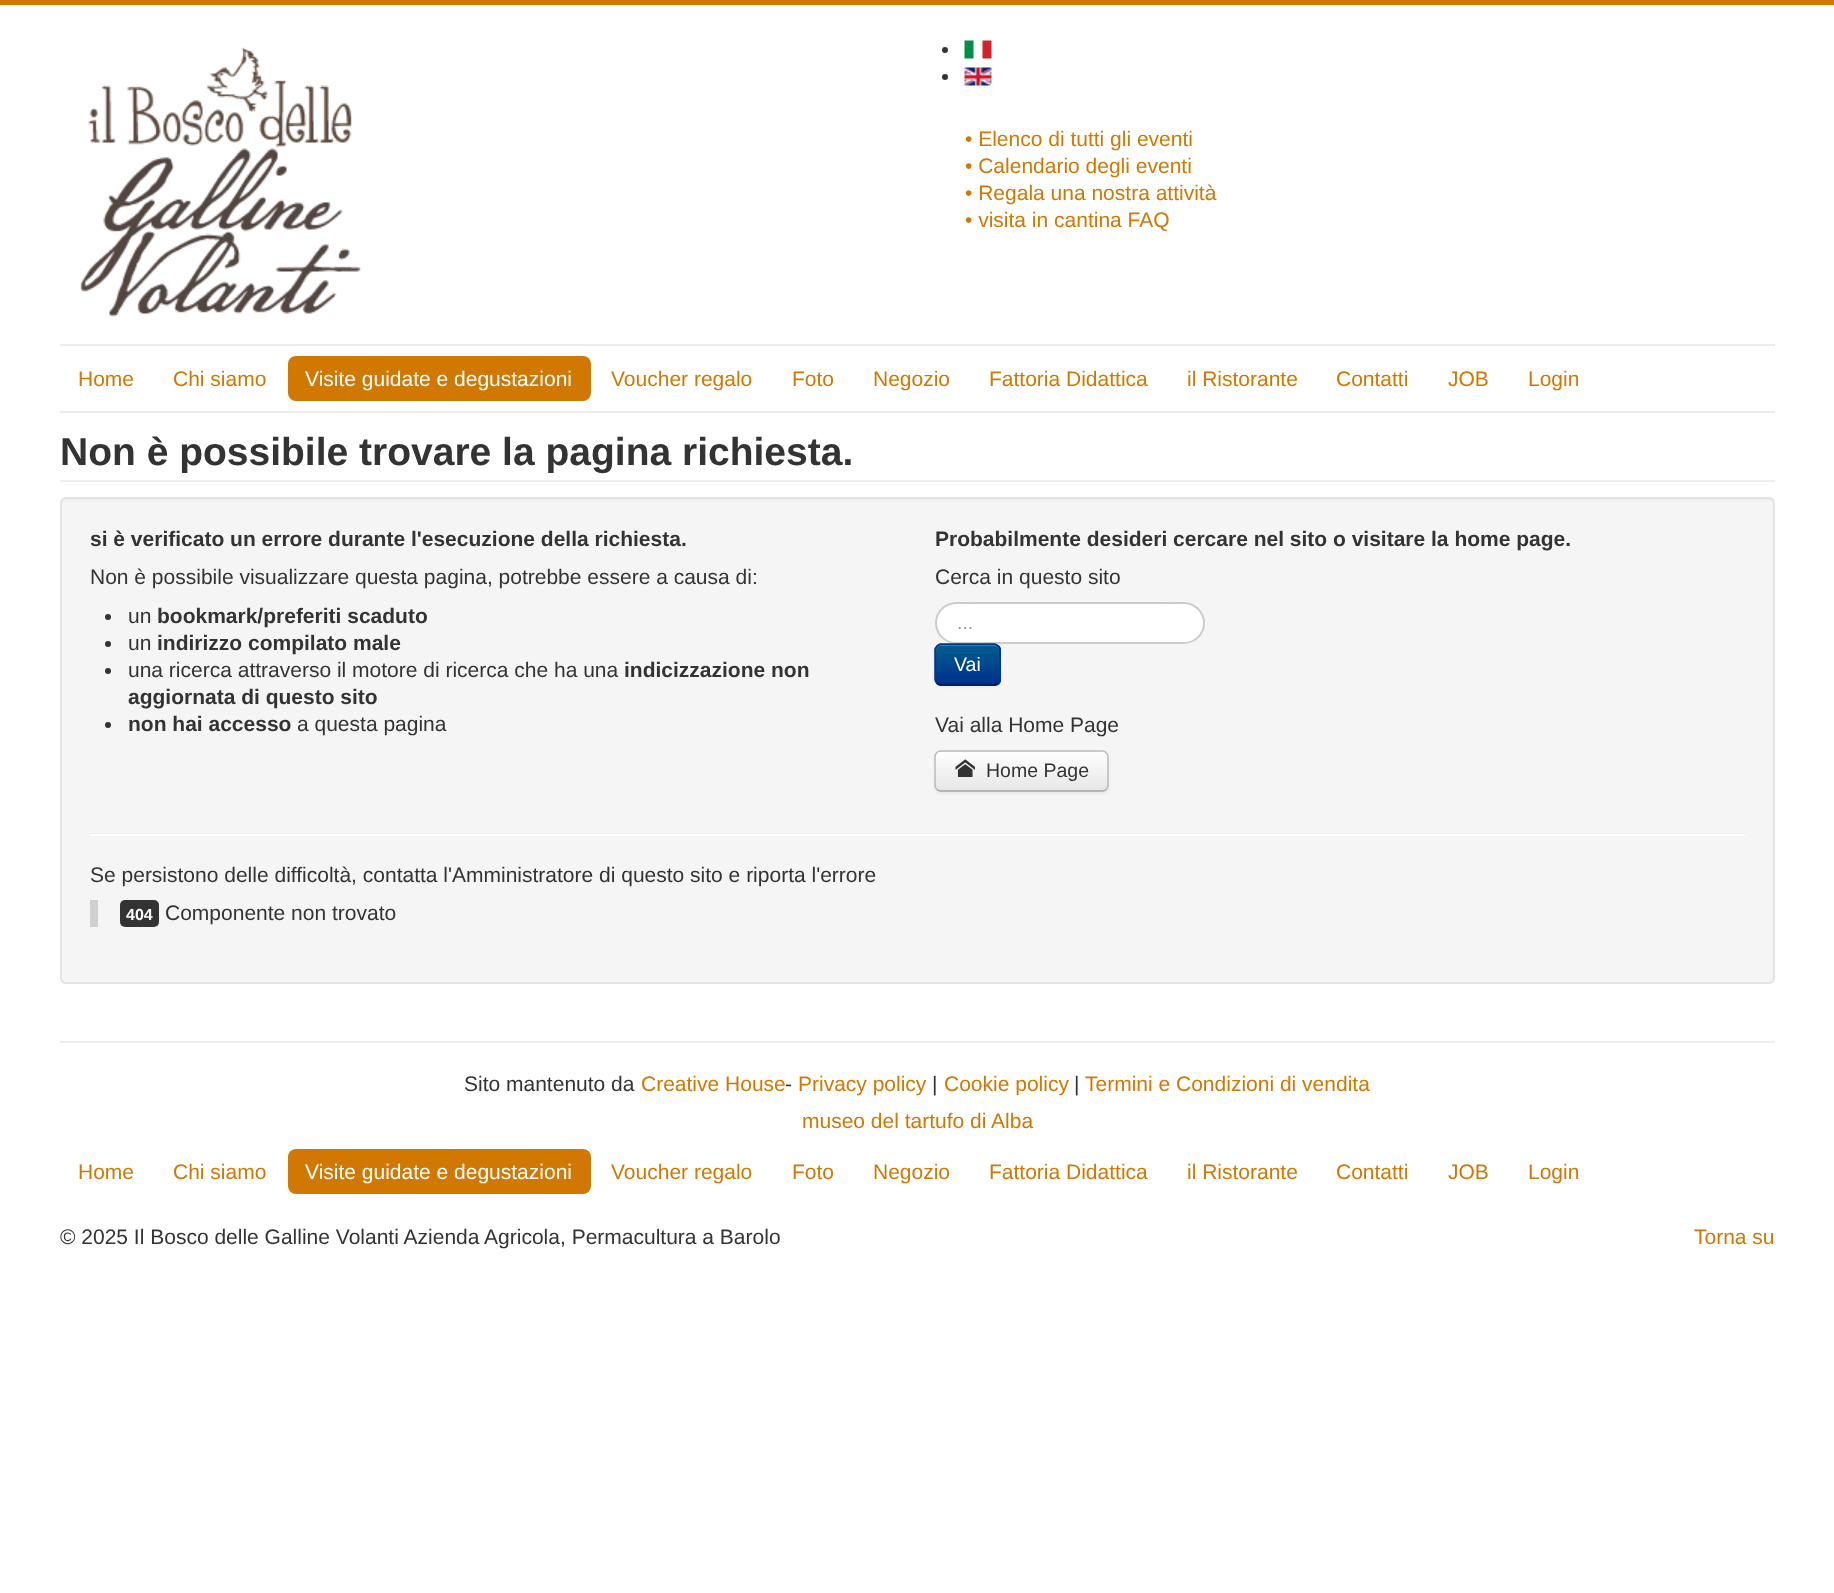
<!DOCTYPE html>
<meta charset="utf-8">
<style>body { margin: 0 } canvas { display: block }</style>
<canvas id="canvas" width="1834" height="1593"></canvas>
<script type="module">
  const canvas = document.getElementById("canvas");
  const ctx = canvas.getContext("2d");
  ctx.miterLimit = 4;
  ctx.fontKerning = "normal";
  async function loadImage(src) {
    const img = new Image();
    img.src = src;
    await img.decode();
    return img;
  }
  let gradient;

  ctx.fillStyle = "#ffffff";
  ctx.fillRect(0, 0, 1834, 1593);
  ctx.fillStyle = "#d17802";
  ctx.fillRect(0, 0, 1834, 5);
  ctx.drawImage(await loadImage("img1.png"), 80, 47, 281, 270);
  ctx.fillStyle = "#333333";
  ctx.beginPath();
  ctx.arc(945, 50, 3, 0, Math.PI * 2);
  ctx.fill();
  ctx.drawImage(await loadImage("img2.png"), 964, 40, 28, 19);
  ctx.beginPath();
  ctx.arc(945, 77, 3, 0, Math.PI * 2);
  ctx.fill();
  ctx.drawImage(await loadImage("img3.png"), 964, 67, 28, 19);
  ctx.font = "21px Liberation Sans";
  ctx.fillStyle = "#d17802";
  ctx.fillText("• Elenco di tutti gli eventi", 965, 146);
  ctx.fillText("• Calendario degli eventi", 965, 173);
  ctx.fillText("• Regala una nostra attività", 965, 200);
  ctx.fillText("• visita in cantina FAQ", 965, 227);
  ctx.fillStyle = "#ececec";
  ctx.fillRect(60, 344, 1715, 2);
  ctx.fillRect(60, 411, 1715, 2);
  ctx.fillStyle = "#d17802";
  ctx.fillText("Home", 78, 386);
  ctx.fillText("Chi siamo", 173, 386);
  ctx.beginPath();
  ctx.roundRect(288, 356, 303, 45, 8);
  ctx.fill();
  ctx.fillStyle = "#ffffff";
  ctx.fillText("Visite guidate e degustazioni", 305, 386);
  ctx.fillStyle = "#d17802";
  ctx.fillText("Voucher regalo", 611, 386);
  ctx.fillText("Foto", 792, 386);
  ctx.fillText("Negozio", 873, 386);
  ctx.fillText("Fattoria Didattica", 989, 386);
  ctx.fillText("il Ristorante", 1187, 386);
  ctx.fillText("Contatti", 1336, 386);
  ctx.fillText("JOB", 1448, 386);
  ctx.fillText("Login", 1528, 386);
  ctx.fillStyle = "#eeeeee";
  ctx.fillRect(60, 480, 1715, 2);
  ctx.font = "bold 39px Liberation Sans";
  ctx.fillStyle = "#333333";
  ctx.fillText("Non è possibile trovare la pagina richiesta.", 60, 465);
  ctx.fillStyle = "#f5f5f5";
  ctx.beginPath();
  ctx.roundRect(60, 497, 1715, 487, 6);
  ctx.fill();
  ctx.fillStyle = "#e9e9e9";
  ctx.beginPath();
  ctx.moveTo(66, 500);
  ctx.lineTo(1768, 500);
  ctx.bezierCurveTo(1771, 500, 1773, 502, 1773, 504);
  ctx.lineTo(1773, 503);
  ctx.bezierCurveTo(1773, 500, 1771, 498, 1768, 498);
  ctx.lineTo(67, 498);
  ctx.bezierCurveTo(64, 498, 62, 500, 62, 503);
  ctx.lineTo(62, 504);
  ctx.bezierCurveTo(62, 502, 64, 500, 66, 500);
  ctx.closePath();
  ctx.fill();
  ctx.beginPath();
  ctx.roundRect(61, 498, 1713, 485, 5);
  ctx.strokeStyle = "#e3e3e3";
  ctx.lineWidth = 2;
  ctx.stroke();
  ctx.font = "bold 21px Liberation Sans";
  ctx.fillStyle = "#333333";
  ctx.fillText("si è verificato un errore durante l'esecuzione della richiesta.", 90, 546);
  ctx.font = "21px Liberation Sans";
  ctx.fillText("Non è possibile visualizzare questa pagina, potrebbe essere a causa di:", 90, 584);
  ctx.beginPath();
  ctx.arc(108, 617, 3, 0, Math.PI * 2);
  ctx.fill();
  ctx.fillText("un", 128, 623);
  ctx.font = "bold 21px Liberation Sans";
  ctx.fillText("bookmark/preferiti scaduto", 157, 623);
  ctx.beginPath();
  ctx.arc(108, 644, 3, 0, Math.PI * 2);
  ctx.fill();
  ctx.font = "21px Liberation Sans";
  ctx.fillText("un", 128, 650);
  ctx.font = "bold 21px Liberation Sans";
  ctx.fillText("indirizzo compilato male", 157, 650);
  ctx.beginPath();
  ctx.arc(108, 671, 3, 0, Math.PI * 2);
  ctx.fill();
  ctx.font = "21px Liberation Sans";
  ctx.fillText("una ricerca attraverso il motore di ricerca che ha una", 128, 677);
  ctx.font = "bold 21px Liberation Sans";
  ctx.fillText("indicizzazione non", 624, 677);
  ctx.fillText("aggiornata di questo sito", 128, 704);
  ctx.beginPath();
  ctx.arc(108, 725, 3, 0, Math.PI * 2);
  ctx.fill();
  ctx.fillText("non hai accesso", 128, 731);
  ctx.font = "21px Liberation Sans";
  ctx.fillText("a questa pagina", 297, 731);
  ctx.font = "bold 21px Liberation Sans";
  ctx.fillText("Probabilmente desideri cercare nel sito o visitare la home page.", 935, 546);
  ctx.font = "21px Liberation Sans";
  ctx.fillText("Cerca in questo sito", 935, 584);
  ctx.fillStyle = "#ffffff";
  ctx.beginPath();
  ctx.roundRect(935, 602, 270, 42, 21);
  ctx.fill();
  ctx.fillStyle = "#ececec";
  ctx.beginPath();
  ctx.moveTo(956, 604);
  ctx.lineTo(1184, 604);
  ctx.bezierCurveTo(1194, 604, 1203, 613, 1203, 623);
  ctx.bezierCurveTo(1204, 594, 1159, 603, 1146, 603);
  ctx.lineTo(994, 603);
  ctx.bezierCurveTo(980, 603, 935, 594, 936, 623);
  ctx.bezierCurveTo(936, 613, 945, 604, 956, 604);
  ctx.closePath();
  ctx.fill();
  ctx.beginPath();
  ctx.roundRect(936, 603, 268, 40, 20);
  ctx.strokeStyle = "#cccccc";
  ctx.stroke();
  ctx.font = "19.5px Liberation Sans";
  ctx.fillStyle = "#999999";
  ctx.fillText("...", 957, 629);
  ctx.fillStyle = "rgba(0, 0, 0, 0.05)";
  ctx.filter = "blur(1.5px)";
  ctx.beginPath();
  ctx.roundRect(935, 645, 66, 42, 6);
  ctx.fill();
  ctx.filter = "none";
  ctx.fillStyle = "#004b8d";
  ctx.beginPath();
  ctx.roundRect(935, 644, 66, 42, 6);
  ctx.fill();
  ctx.save();
  ctx.beginPath();
  ctx.roundRect(935, 644, 66, 42, 6);
  ctx.clip();
  gradient = ctx.createLinearGradient(968, 645, 968, 684);
  gradient.addColorStop(0, "#005e8d");
  gradient.addColorStop(1, "#002f8d");
  ctx.fillStyle = gradient;
  ctx.fillRect(935, 645, 66, 39);
  ctx.restore();
  ctx.fillStyle = "#337da4";
  ctx.beginPath();
  ctx.moveTo(940, 646);
  ctx.lineTo(994, 646);
  ctx.bezierCurveTo(997, 646, 999, 649, 999, 651);
  ctx.bezierCurveTo(999, 643, 991, 645, 985, 645);
  ctx.lineTo(950, 645);
  ctx.bezierCurveTo(944, 645, 936, 643, 936, 651);
  ctx.bezierCurveTo(936, 649, 938, 646, 940, 646);
  ctx.closePath();
  ctx.fill();
  ctx.beginPath();
  ctx.moveTo(998, 683);
  ctx.bezierCurveTo(997, 684, 996, 685, 994.5, 685);
  ctx.lineTo(940.5, 685);
  ctx.bezierCurveTo(939, 685, 938, 684, 937, 683);
  ctx.strokeStyle = "#001641";
  ctx.lineWidth = 1.5;
  ctx.stroke();
  ctx.beginPath();
  ctx.moveTo(937, 683);
  ctx.bezierCurveTo(936, 682, 935, 681, 935, 679.5);
  ctx.lineTo(935, 649.5);
  ctx.bezierCurveTo(935, 648, 936, 647, 937, 646);
  ctx.bezierCurveTo(938, 645, 939, 644, 940.5, 644);
  ctx.lineTo(994.5, 644);
  ctx.bezierCurveTo(996, 644, 997, 645, 998, 646);
  ctx.bezierCurveTo(999, 647, 1000, 648, 1000, 649.5);
  ctx.lineTo(1000, 679.5);
  ctx.bezierCurveTo(1000, 681, 999, 682, 998, 683);
  ctx.strokeStyle = "#002f8d";
  ctx.stroke();
  ctx.fillStyle = "#ffffff";
  ctx.fillText("Vai", 954, 671);
  ctx.font = "21px Liberation Sans";
  ctx.fillStyle = "#333333";
  ctx.fillText("Vai alla Home Page", 935, 732);
  ctx.fillStyle = "rgba(0, 0, 0, 0.05)";
  ctx.filter = "blur(1.5px)";
  ctx.beginPath();
  ctx.roundRect(935, 752, 174, 42, 6);
  ctx.fill();
  ctx.filter = "none";
  ctx.fillStyle = "#f5f5f5";
  ctx.beginPath();
  ctx.roundRect(935, 750, 174, 42, 6);
  ctx.fill();
  ctx.save();
  ctx.beginPath();
  ctx.roundRect(935, 750, 174, 42, 6);
  ctx.clip();
  gradient = ctx.createLinearGradient(1022, 752, 1022, 791);
  gradient.addColorStop(0, "#ffffff");
  gradient.addColorStop(1, "#e6e6e6");
  ctx.fillStyle = gradient;
  ctx.fillRect(935, 752, 174, 39);
  ctx.restore();
  ctx.beginPath();
  ctx.moveTo(1106, 789.5);
  ctx.bezierCurveTo(1105, 790.5, 1104, 791, 1102.5, 791);
  ctx.lineTo(940.5, 791);
  ctx.bezierCurveTo(939, 791, 938, 790.5, 937, 789.5);
  ctx.strokeStyle = "#a2a2a2";
  ctx.stroke();
  ctx.beginPath();
  ctx.moveTo(937, 789.5);
  ctx.bezierCurveTo(936, 788.5, 935, 787.5, 935, 786);
  ctx.lineTo(935, 756);
  ctx.bezierCurveTo(935, 754.5, 936, 753.5, 937, 752.5);
  ctx.bezierCurveTo(938, 751.5, 939, 751, 940.5, 751);
  ctx.lineTo(1102.5, 751);
  ctx.bezierCurveTo(1104, 751, 1105, 751.5, 1106, 752.5);
  ctx.bezierCurveTo(1107, 753.5, 1108, 754.5, 1108, 756);
  ctx.lineTo(1108, 786);
  ctx.bezierCurveTo(1108, 787.5, 1107, 788.5, 1106, 789.5);
  ctx.strokeStyle = "#bbbbbb";
  ctx.stroke();
  ctx.drawImage(await loadImage("img4.png"), 955, 759, 20, 18);
  ctx.font = "19.5px Liberation Sans";
  ctx.fillStyle = "#333333";
  ctx.fillText("Home Page", 986, 777);
  ctx.fillStyle = "#eeeeee";
  ctx.fillRect(90, 833, 1655, 1);
  ctx.fillStyle = "#ffffff";
  ctx.fillRect(90, 834, 1655, 2);
  ctx.font = "21px Liberation Sans";
  ctx.fillStyle = "#333333";
  ctx.fillText("Se persistono delle difficoltà, contatta l'Amministratore di questo sito e riporta l'errore", 90, 882);
  ctx.fillStyle = "#d0d0d0";
  ctx.fillRect(90, 900, 8, 27);
  ctx.fillStyle = "#333333";
  ctx.beginPath();
  ctx.roundRect(120, 900, 39, 27, 5);
  ctx.fill();
  ctx.font = "bold 16px Liberation Sans";
  ctx.fillStyle = "#ffffff";
  ctx.fillText("404", 126, 920);
  ctx.font = "21px Liberation Sans";
  ctx.fillStyle = "#333333";
  ctx.fillText("Componente non trovato", 165, 920);
  ctx.fillStyle = "#eeeeee";
  ctx.fillRect(60, 1041, 1715, 2);
  ctx.fillStyle = "#333333";
  ctx.fillText("Sito mantenuto da", 464, 1091);
  ctx.fillStyle = "#d17802";
  ctx.fillText("Creative House", 641, 1091);
  ctx.fillStyle = "#333333";
  ctx.fillText("-", 785, 1091);
  ctx.fillStyle = "#d17802";
  ctx.fillText("Privacy policy", 798, 1091);
  ctx.fillStyle = "#333333";
  ctx.fillText("|", 932, 1091);
  ctx.fillStyle = "#d17802";
  ctx.fillText("Cookie policy", 944, 1091);
  ctx.fillStyle = "#333333";
  ctx.fillText("|", 1074, 1091);
  ctx.fillStyle = "#d17802";
  ctx.fillText("Termini e Condizioni di vendita", 1085, 1091);
  ctx.fillText("museo del tartufo di Alba", 802, 1128);
  ctx.fillText("Home", 78, 1179);
  ctx.fillText("Chi siamo", 173, 1179);
  ctx.beginPath();
  ctx.roundRect(288, 1149, 303, 45, 8);
  ctx.fill();
  ctx.fillStyle = "#ffffff";
  ctx.fillText("Visite guidate e degustazioni", 305, 1179);
  ctx.fillStyle = "#d17802";
  ctx.fillText("Voucher regalo", 611, 1179);
  ctx.fillText("Foto", 792, 1179);
  ctx.fillText("Negozio", 873, 1179);
  ctx.fillText("Fattoria Didattica", 989, 1179);
  ctx.fillText("il Ristorante", 1187, 1179);
  ctx.fillText("Contatti", 1336, 1179);
  ctx.fillText("JOB", 1448, 1179);
  ctx.fillText("Login", 1528, 1179);
  ctx.fillStyle = "#333333";
  ctx.fillText("© 2025 Il Bosco delle Galline Volanti Azienda Agricola, Permacultura a Barolo", 60, 1244);
  ctx.fillStyle = "#d17802";
  ctx.fillText("Torna su", 1694, 1244);
</script>
